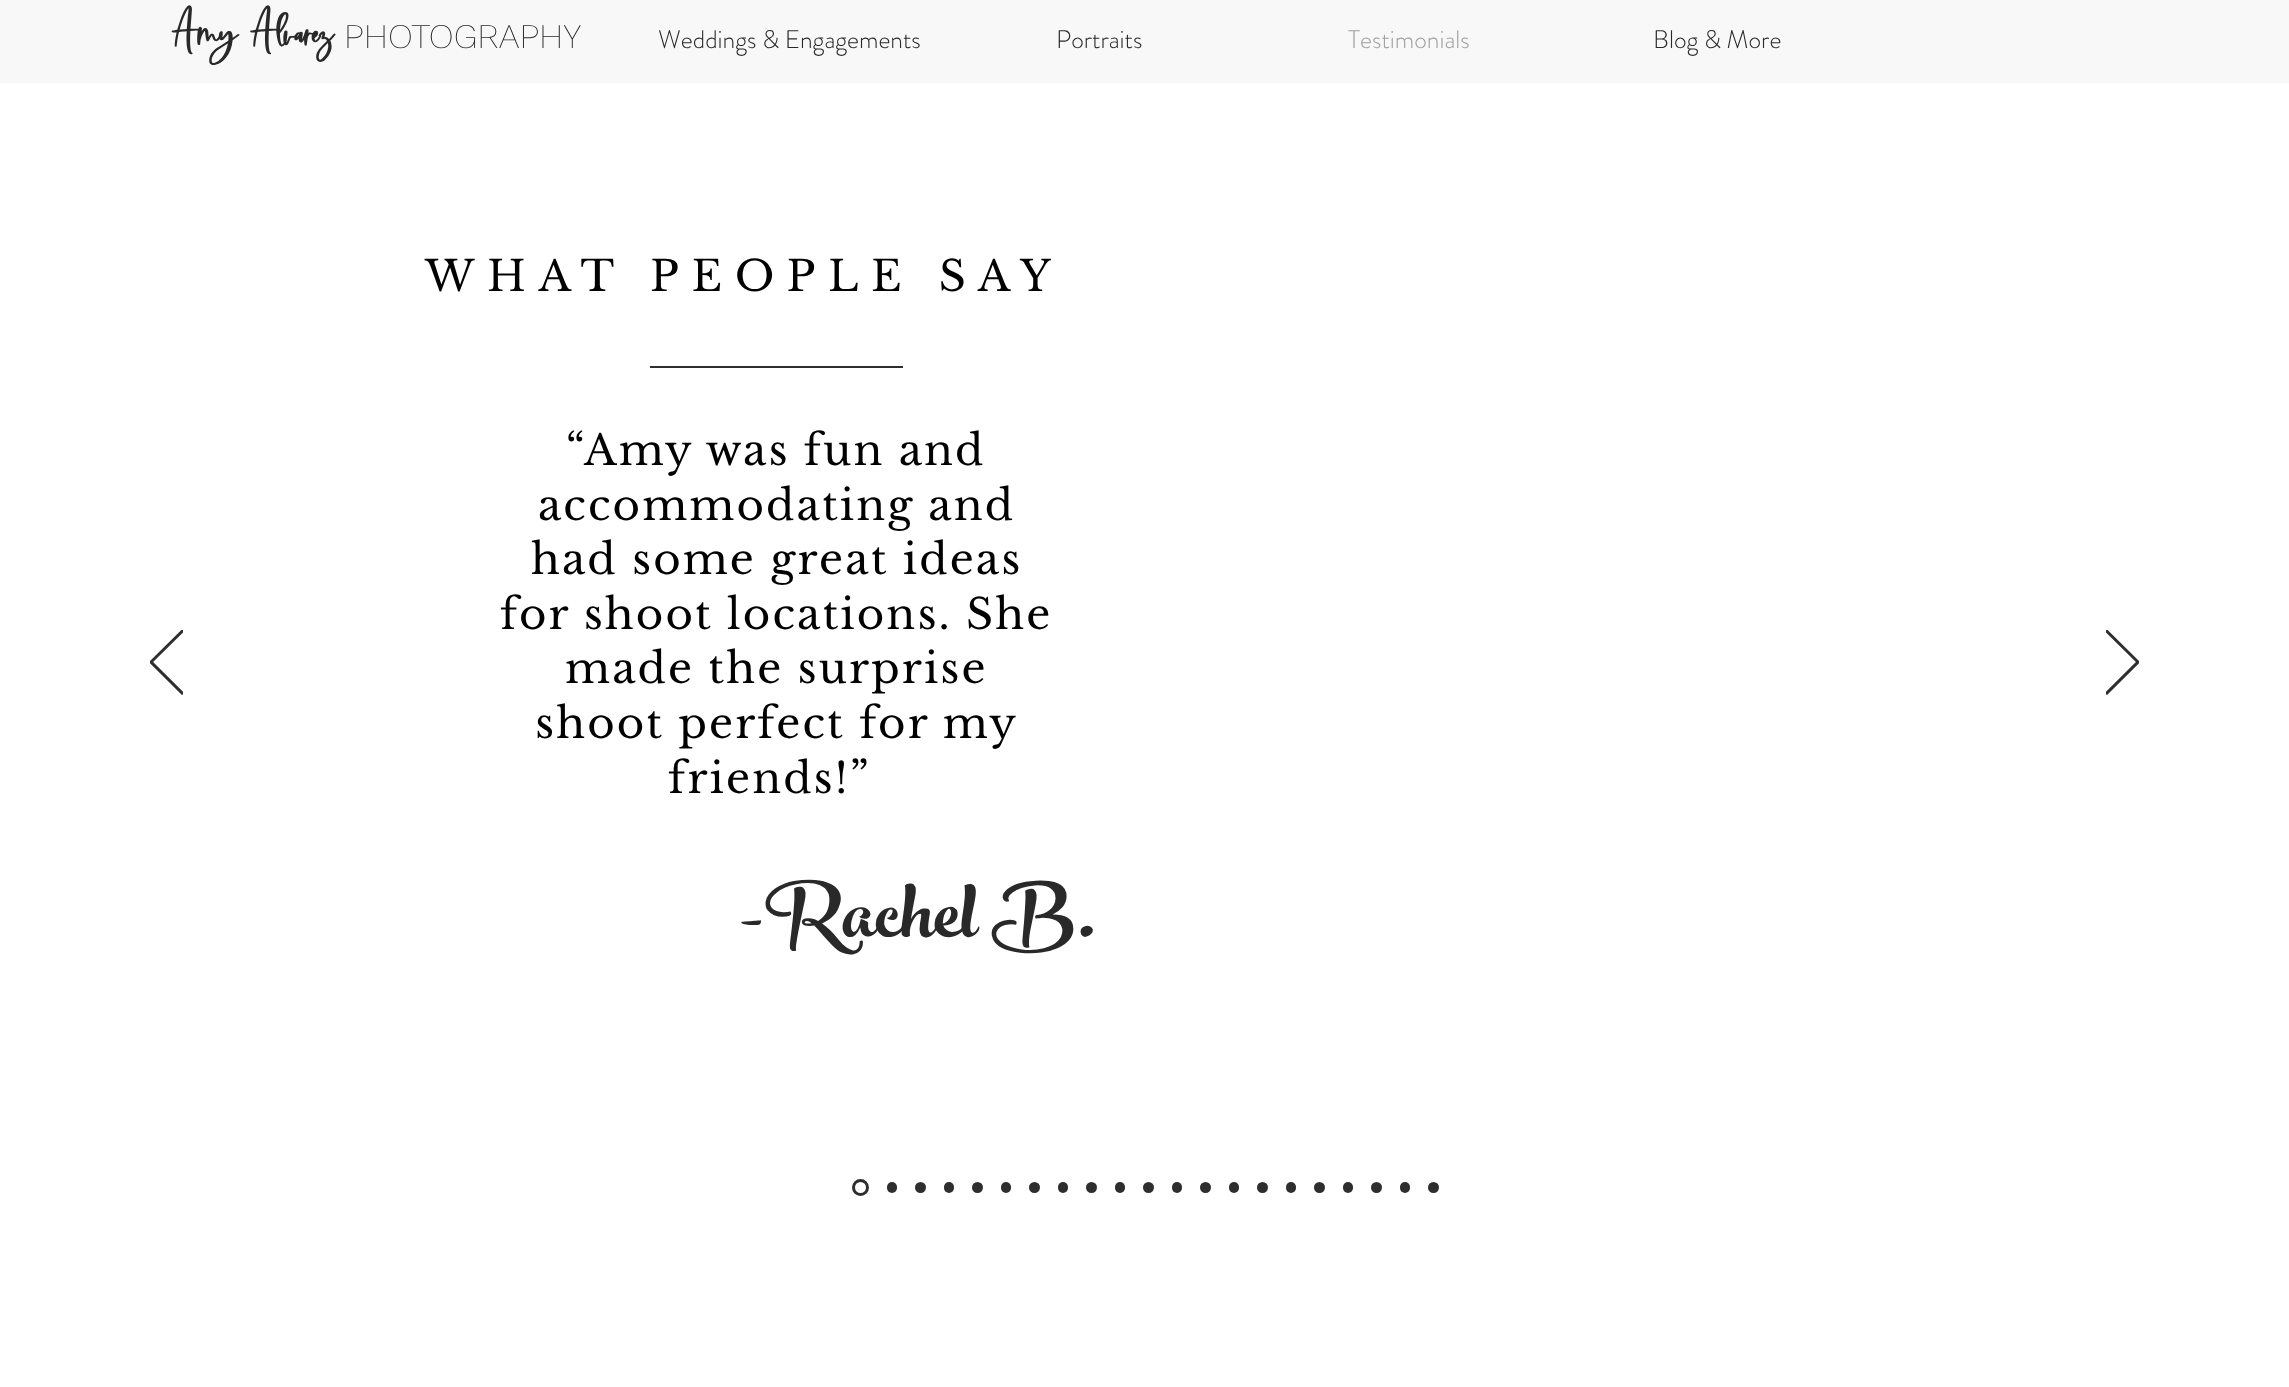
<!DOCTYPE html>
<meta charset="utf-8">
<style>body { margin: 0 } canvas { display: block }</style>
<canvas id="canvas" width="2289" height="1387"></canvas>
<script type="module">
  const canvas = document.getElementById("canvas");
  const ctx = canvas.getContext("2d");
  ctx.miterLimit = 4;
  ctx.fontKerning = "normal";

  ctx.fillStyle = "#ffffff";
  ctx.fillRect(0, 0, 2289, 1387);
  ctx.fillStyle = "#f8f8f8";
  ctx.fillRect(0, 0, 2289, 83);
  ctx.font = "bold 48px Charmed";
  ctx.fillStyle = "#292929";
  ctx.fillText("Amy Alvarez", 170, 48);
  ctx.font = "200 34.5px Work Sans";
  ctx.fillText("PHOTOGRAPHY", 344, 48);
  ctx.font = "300 25.5px 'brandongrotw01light'";
  ctx.fillText("Weddings & Engagements", 658, 48);
  ctx.fillText("Portraits", 1056, 48);
  ctx.fillStyle = "#a0a09f";
  ctx.fillText("Testimonials", 1348, 48);
  ctx.fillStyle = "#292929";
  ctx.fillText("Blog & More", 1653, 48);
  ctx.save();
  ctx.beginPath();
  ctx.rect(150, 630, 33, 65);
  ctx.clip();
  ctx.beginPath();
  ctx.moveTo(182, 694);
  ctx.lineTo(150, 662);
  ctx.lineTo(182, 630.5);
  ctx.lineTo(183, 631.5);
  ctx.lineTo(152, 662);
  ctx.lineTo(183, 693);
  ctx.closePath();
  ctx.strokeStyle = "#2f2e2e";
  ctx.lineWidth = 1.6;
  ctx.stroke();
  ctx.restore();
  ctx.letterSpacing = "12.6px";
  ctx.font = "42px Libre Baskerville";
  ctx.fillStyle = "#000000";
  ctx.fillText("WHAT PEOPLE SAY", 425, 291);
  ctx.fillStyle = "#2f2e2e";
  ctx.fillRect(650, 366, 253, 2);
  ctx.letterSpacing = "2.1px";
  ctx.fillStyle = "#000000";
  ctx.fillText("“Amy was fun and", 566, 465);
  ctx.fillText("accommodating and", 538, 520);
  ctx.fillText("had some great ideas", 531, 574);
  ctx.fillText("for shoot locations. She", 500, 629);
  ctx.fillText("made the surprise", 565, 683);
  ctx.fillText("shoot perfect for my", 535, 738);
  ctx.fillText("friends!”", 668, 793);
  ctx.letterSpacing = "1.1px";
  ctx.font = "112.5px 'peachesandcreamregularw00'";
  ctx.fillStyle = "#292929";
  ctx.fillText("-Rachel B.", 740, 937);
  ctx.save();
  ctx.beginPath();
  ctx.rect(2106, 630, 33, 65);
  ctx.clip();
  ctx.beginPath();
  ctx.moveTo(2107, 694);
  ctx.lineTo(2139, 662);
  ctx.lineTo(2107, 630.5);
  ctx.lineTo(2106, 631.5);
  ctx.lineTo(2137, 662);
  ctx.lineTo(2106, 693);
  ctx.closePath();
  ctx.strokeStyle = "#2f2e2e";
  ctx.lineWidth = 1.6;
  ctx.stroke();
  ctx.restore();
  ctx.beginPath();
  ctx.arc(860.5, 1187.5, 7, 0, Math.PI * 2);
  ctx.strokeStyle = "#2f2e2e";
  ctx.lineWidth = 3;
  ctx.stroke();
  ctx.fillStyle = "#2f2e2e";
  ctx.beginPath();
  ctx.roundRect(887, 1182, 10, 11, 5);
  ctx.fill();
  ctx.beginPath();
  ctx.arc(920.5, 1187.5, 5.5, 0, Math.PI * 2);
  ctx.fill();
  ctx.beginPath();
  ctx.roundRect(944, 1182, 10, 11, 5);
  ctx.fill();
  ctx.beginPath();
  ctx.arc(977.5, 1187.5, 5.5, 0, Math.PI * 2);
  ctx.fill();
  ctx.beginPath();
  ctx.roundRect(1001, 1182, 10, 11, 5);
  ctx.fill();
  ctx.beginPath();
  ctx.arc(1034.5, 1187.5, 5.5, 0, Math.PI * 2);
  ctx.fill();
  ctx.beginPath();
  ctx.roundRect(1058, 1182, 10, 11, 5);
  ctx.fill();
  ctx.beginPath();
  ctx.arc(1091.5, 1187.5, 5.5, 0, Math.PI * 2);
  ctx.fill();
  ctx.beginPath();
  ctx.roundRect(1115, 1182, 10, 11, 5);
  ctx.fill();
  ctx.beginPath();
  ctx.arc(1148.5, 1187.5, 5.5, 0, Math.PI * 2);
  ctx.fill();
  ctx.beginPath();
  ctx.roundRect(1172, 1182, 10, 11, 5);
  ctx.fill();
  ctx.beginPath();
  ctx.arc(1205.5, 1187.5, 5.5, 0, Math.PI * 2);
  ctx.fill();
  ctx.beginPath();
  ctx.roundRect(1229, 1182, 10, 11, 5);
  ctx.fill();
  ctx.beginPath();
  ctx.arc(1262.5, 1187.5, 5.5, 0, Math.PI * 2);
  ctx.fill();
  ctx.beginPath();
  ctx.roundRect(1286, 1182, 10, 11, 5);
  ctx.fill();
  ctx.beginPath();
  ctx.arc(1319.5, 1187.5, 5.5, 0, Math.PI * 2);
  ctx.fill();
  ctx.beginPath();
  ctx.roundRect(1343, 1182, 10, 11, 5);
  ctx.fill();
  ctx.beginPath();
  ctx.arc(1376.5, 1187.5, 5.5, 0, Math.PI * 2);
  ctx.fill();
  ctx.beginPath();
  ctx.roundRect(1400, 1182, 10, 11, 5);
  ctx.fill();
  ctx.beginPath();
  ctx.arc(1433.5, 1187.5, 5.5, 0, Math.PI * 2);
  ctx.fill();
</script>
